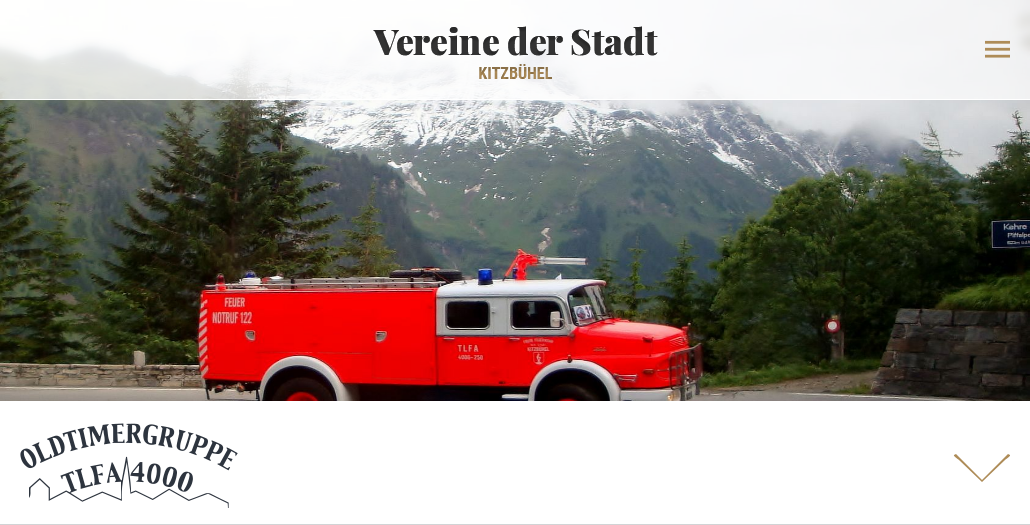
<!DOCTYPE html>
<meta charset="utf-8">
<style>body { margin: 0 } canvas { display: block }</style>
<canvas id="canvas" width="1030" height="525"></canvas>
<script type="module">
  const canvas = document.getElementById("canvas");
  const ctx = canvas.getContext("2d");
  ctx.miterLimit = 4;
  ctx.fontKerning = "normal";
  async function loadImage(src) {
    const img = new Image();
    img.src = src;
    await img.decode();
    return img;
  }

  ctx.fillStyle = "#ffffff";
  ctx.fillRect(0, 0, 1030, 525);
  ctx.drawImage(await loadImage("img1.png"), 0, 0, 1030, 401);
  ctx.fillStyle = "rgba(255, 255, 255, 0.75)";
  ctx.fillRect(0, 0, 1030, 99);
  ctx.fillStyle = "#ffffff";
  ctx.fillRect(0, 99, 1030, 1);
  ctx.drawImage(await loadImage("img2.png"), 373, 26, 285, 53);
  ctx.drawImage(await loadImage("img3.png"), 985, 40, 25, 18);
  ctx.drawImage(await loadImage("img4.png"), 20, 423, 218, 85);
  ctx.fillStyle = "#ae8c58";
  ctx.beginPath();
  ctx.moveTo(982, 482);
  ctx.lineTo(1005, 460);
  ctx.bezierCurveTo(1006, 459, 1011, 456, 1010, 455);
  ctx.lineTo(1008, 454);
  ctx.lineTo(982, 480);
  ctx.lineTo(956, 454);
  ctx.lineTo(954, 455);
  ctx.bezierCurveTo(953, 456, 958, 459, 959, 460);
  ctx.closePath();
  ctx.fill();
  ctx.fillStyle = "#d2d3d5";
  ctx.fillRect(0, 524, 1030, 1);
</script>
